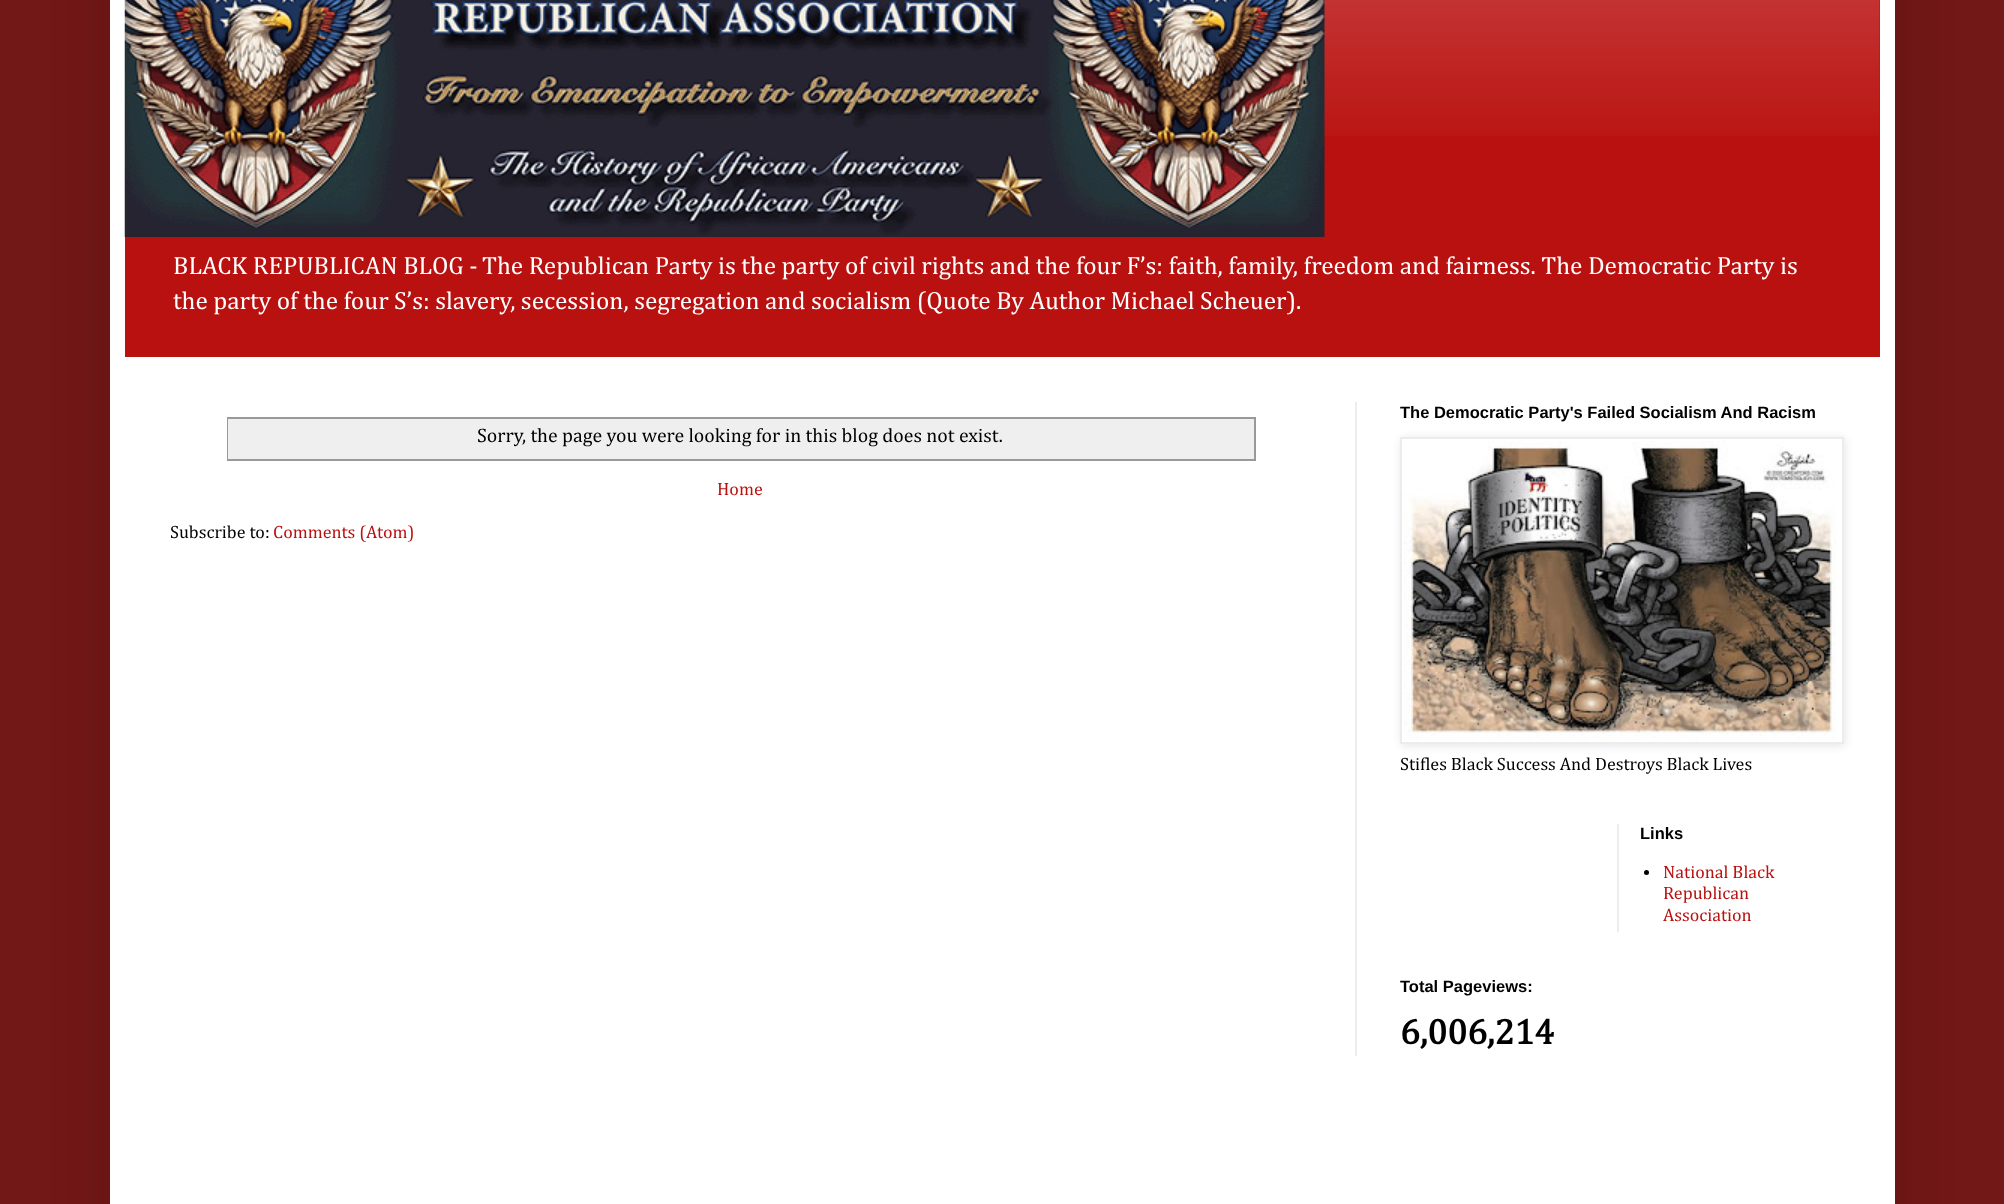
<!DOCTYPE html>
<meta charset="utf-8">
<style>body { margin: 0 } canvas { display: block }</style>
<canvas id="canvas" width="2004" height="1204"></canvas>
<script type="module">
  const canvas = document.getElementById("canvas");
  const ctx = canvas.getContext("2d");
  ctx.miterLimit = 4;
  ctx.fontKerning = "normal";
  async function loadImage(src) {
    const img = new Image();
    img.src = src;
    await img.decode();
    return img;
  }

  ctx.fillStyle = "#721817";
  ctx.fillRect(0, 0, 2004, 1204);
  ctx.fillStyle = "rgba(0, 0, 0, 0.15)";
  ctx.filter = "blur(30px)";
  ctx.beginPath();
  ctx.rect(110, -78, 1785, 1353);
  ctx.fill();
  ctx.filter = "none";
  ctx.fillStyle = "#ffffff";
  ctx.fillRect(110, 0, 1785, 1204);
  ctx.fillStyle = "#b9110f";
  ctx.fillRect(125, 0, 1755, 357);
  ctx.drawImage(await loadImage("img1.png"), 1324, 0, 556, 136);
  ctx.drawImage(await loadImage("img2.png"), 124, 0, 1201, 237);
  ctx.font = "25.2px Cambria";
  ctx.fillStyle = "#ffffff";
  ctx.fillText("BLACK REPUBLICAN BLOG -", 173, 274);
  ctx.fillText("The Republican Party is the party of civil rights and the four F’s: faith, family, freedom and fairness. The Democratic Party is", 482, 274);
  ctx.fillText("the party of the four S’s: slavery, secession, segregation and socialism (Quote By Author Michael Scheuer).", 173, 309);
  ctx.fillStyle = "#ececec";
  ctx.fillRect(1355, 402, 2, 654);
  ctx.strokeStyle = "#999999";
  ctx.lineWidth = 2;
  ctx.strokeRect(228, 418, 1027, 42);
  ctx.fillStyle = "#efefef";
  ctx.fillRect(228, 419, 1026, 40);
  ctx.font = "19.8px Cambria";
  ctx.fillStyle = "#000000";
  ctx.fillText("Sorry, the page you were looking for in this blog does not exist.", 477, 442);
  ctx.font = "18px Cambria";
  ctx.fillStyle = "#b9110f";
  ctx.fillText("Home", 717, 495);
  ctx.fillStyle = "#000000";
  ctx.fillText("Subscribe to:", 170, 538);
  ctx.fillStyle = "#b9110f";
  ctx.fillText("Comments (Atom)", 273, 538);
  ctx.font = "bold 16.5px Liberation Sans";
  ctx.fillStyle = "#000000";
  ctx.fillText("The Democratic Party's Failed Socialism And Racism", 1400, 418);
  ctx.fillStyle = "rgba(0, 0, 0, 0.1)";
  ctx.filter = "blur(4px)";
  ctx.beginPath();
  ctx.rect(1401, 438, 444, 308);
  ctx.fill();
  ctx.filter = "none";
  ctx.fillStyle = "#ffffff";
  ctx.beginPath();
  ctx.rect(1401, 438, 442, 305);
  ctx.fill();
  ctx.strokeStyle = "#ececec";
  ctx.stroke();
  ctx.drawImage(await loadImage("img3.png"), 1404, 441, 432, 299);
  ctx.font = "18px Cambria";
  ctx.fillStyle = "#000000";
  ctx.fillText("Stifles Black Success And Destroys Black Lives", 1400, 770);
  ctx.fillStyle = "#ececec";
  ctx.fillRect(1617, 824, 2, 108);
  ctx.font = "bold 16.5px Liberation Sans";
  ctx.fillStyle = "#000000";
  ctx.fillText("Links", 1640, 839);
  ctx.beginPath();
  ctx.arc(1646.5, 872.5, 2.5, 0, Math.PI * 2);
  ctx.fill();
  ctx.font = "18px Cambria";
  ctx.fillStyle = "#b9110f";
  ctx.fillText("National Black", 1663, 878);
  ctx.fillText("Republican", 1663, 899);
  ctx.fillText("Association", 1663, 921);
  ctx.font = "bold 16.5px Liberation Sans";
  ctx.fillStyle = "#000000";
  ctx.fillText("Total Pageviews:", 1400, 992);
  ctx.font = "bold 36px Cambria";
  ctx.fillText("6,006,214", 1400, 1044);
</script>
